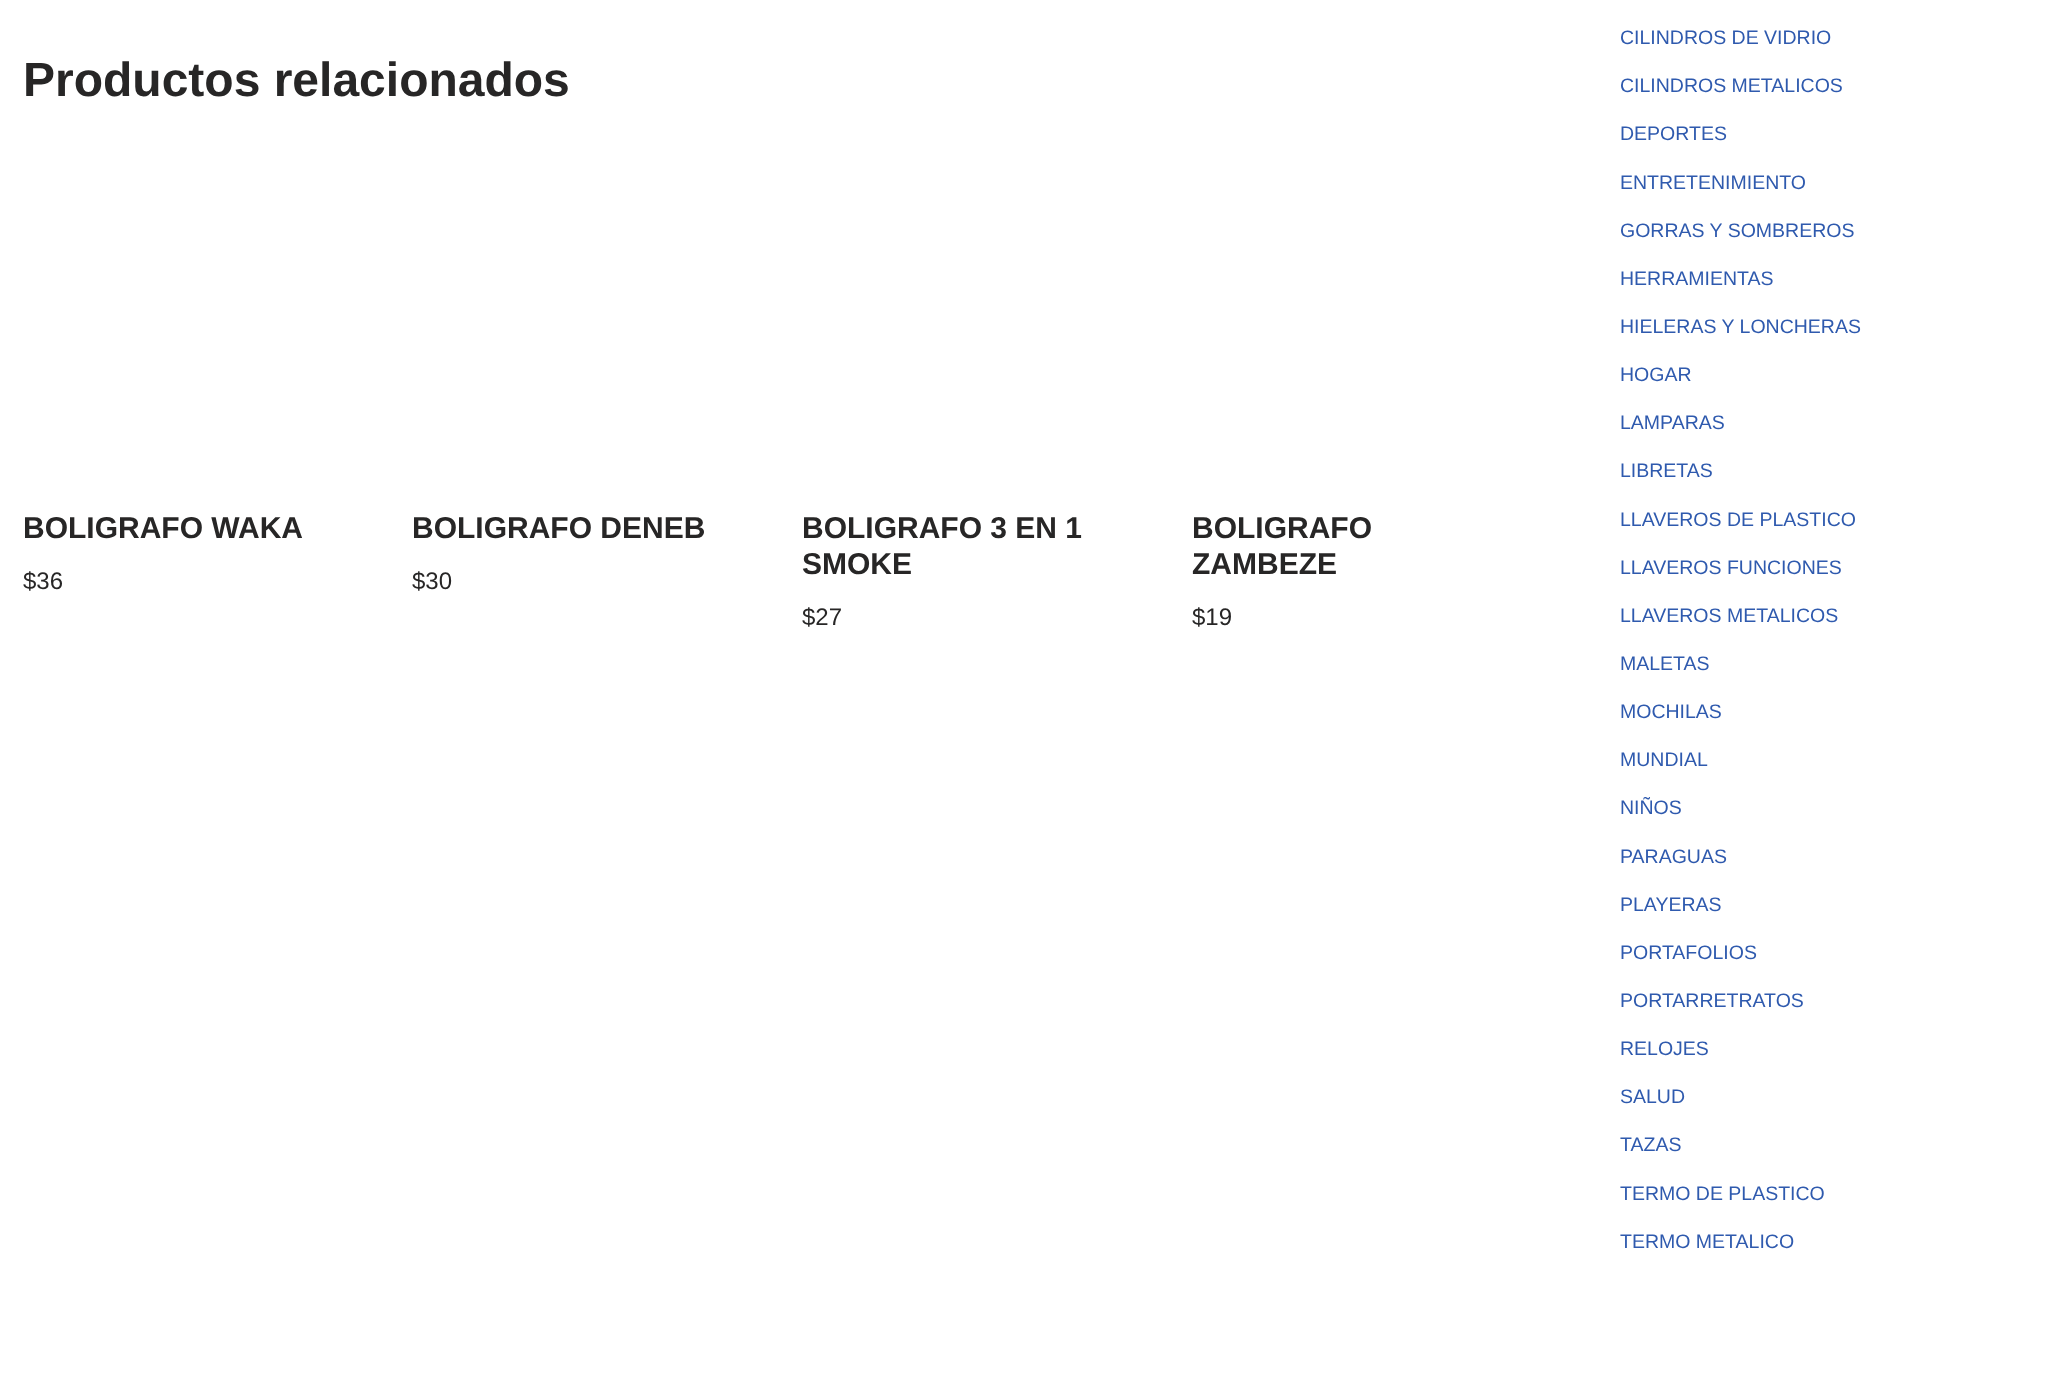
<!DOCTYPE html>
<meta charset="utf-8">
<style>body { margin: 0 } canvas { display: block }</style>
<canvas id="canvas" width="2069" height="1384"></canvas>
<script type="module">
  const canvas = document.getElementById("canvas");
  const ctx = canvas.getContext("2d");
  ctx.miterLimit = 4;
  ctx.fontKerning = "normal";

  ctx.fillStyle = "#ffffff";
  ctx.fillRect(0, 0, 2069, 1384);
  ctx.font = "bold 48px Liberation Sans";
  ctx.fillStyle = "#272626";
  ctx.fillText("Productos relacionados", 23, 96);
  ctx.font = "bold 30px Liberation Sans";
  ctx.fillText("BOLIGRAFO WAKA", 23, 538);
  ctx.font = "24px Liberation Sans";
  ctx.fillText("$36", 23, 589);
  ctx.font = "bold 30px Liberation Sans";
  ctx.fillText("BOLIGRAFO DENEB", 412, 538);
  ctx.font = "24px Liberation Sans";
  ctx.fillText("$30", 412, 589);
  ctx.font = "bold 30px Liberation Sans";
  ctx.fillText("BOLIGRAFO 3 EN 1", 802, 538);
  ctx.fillText("SMOKE", 802, 574);
  ctx.font = "24px Liberation Sans";
  ctx.fillText("$27", 802, 625);
  ctx.font = "bold 30px Liberation Sans";
  ctx.fillText("BOLIGRAFO", 1192, 538);
  ctx.fillText("ZAMBEZE", 1192, 574);
  ctx.font = "24px Liberation Sans";
  ctx.fillText("$19", 1192, 625);
  ctx.font = "19.5px Liberation Sans";
  ctx.fillStyle = "#2f5aae";
  ctx.fillText("CILINDROS DE VIDRIO", 1620, 44);
  ctx.fillText("CILINDROS METALICOS", 1620, 92);
  ctx.fillText("DEPORTES", 1620, 140);
  ctx.fillText("ENTRETENIMIENTO", 1620, 189);
  ctx.fillText("GORRAS Y SOMBREROS", 1620, 237);
  ctx.fillText("HERRAMIENTAS", 1620, 285);
  ctx.fillText("HIELERAS Y LONCHERAS", 1620, 333);
  ctx.fillText("HOGAR", 1620, 381);
  ctx.fillText("LAMPARAS", 1620, 429);
  ctx.fillText("LIBRETAS", 1620, 477);
  ctx.fillText("LLAVEROS DE PLASTICO", 1620, 526);
  ctx.fillText("LLAVEROS FUNCIONES", 1620, 574);
  ctx.fillText("LLAVEROS METALICOS", 1620, 622);
  ctx.fillText("MALETAS", 1620, 670);
  ctx.fillText("MOCHILAS", 1620, 718);
  ctx.fillText("MUNDIAL", 1620, 766);
  ctx.fillText("NIÑOS", 1620, 814);
  ctx.fillText("PARAGUAS", 1620, 863);
  ctx.fillText("PLAYERAS", 1620, 911);
  ctx.fillText("PORTAFOLIOS", 1620, 959);
  ctx.fillText("PORTARRETRATOS", 1620, 1007);
  ctx.fillText("RELOJES", 1620, 1055);
  ctx.fillText("SALUD", 1620, 1103);
  ctx.fillText("TAZAS", 1620, 1151);
  ctx.fillText("TERMO DE PLASTICO", 1620, 1200);
  ctx.fillText("TERMO METALICO", 1620, 1248);
</script>
